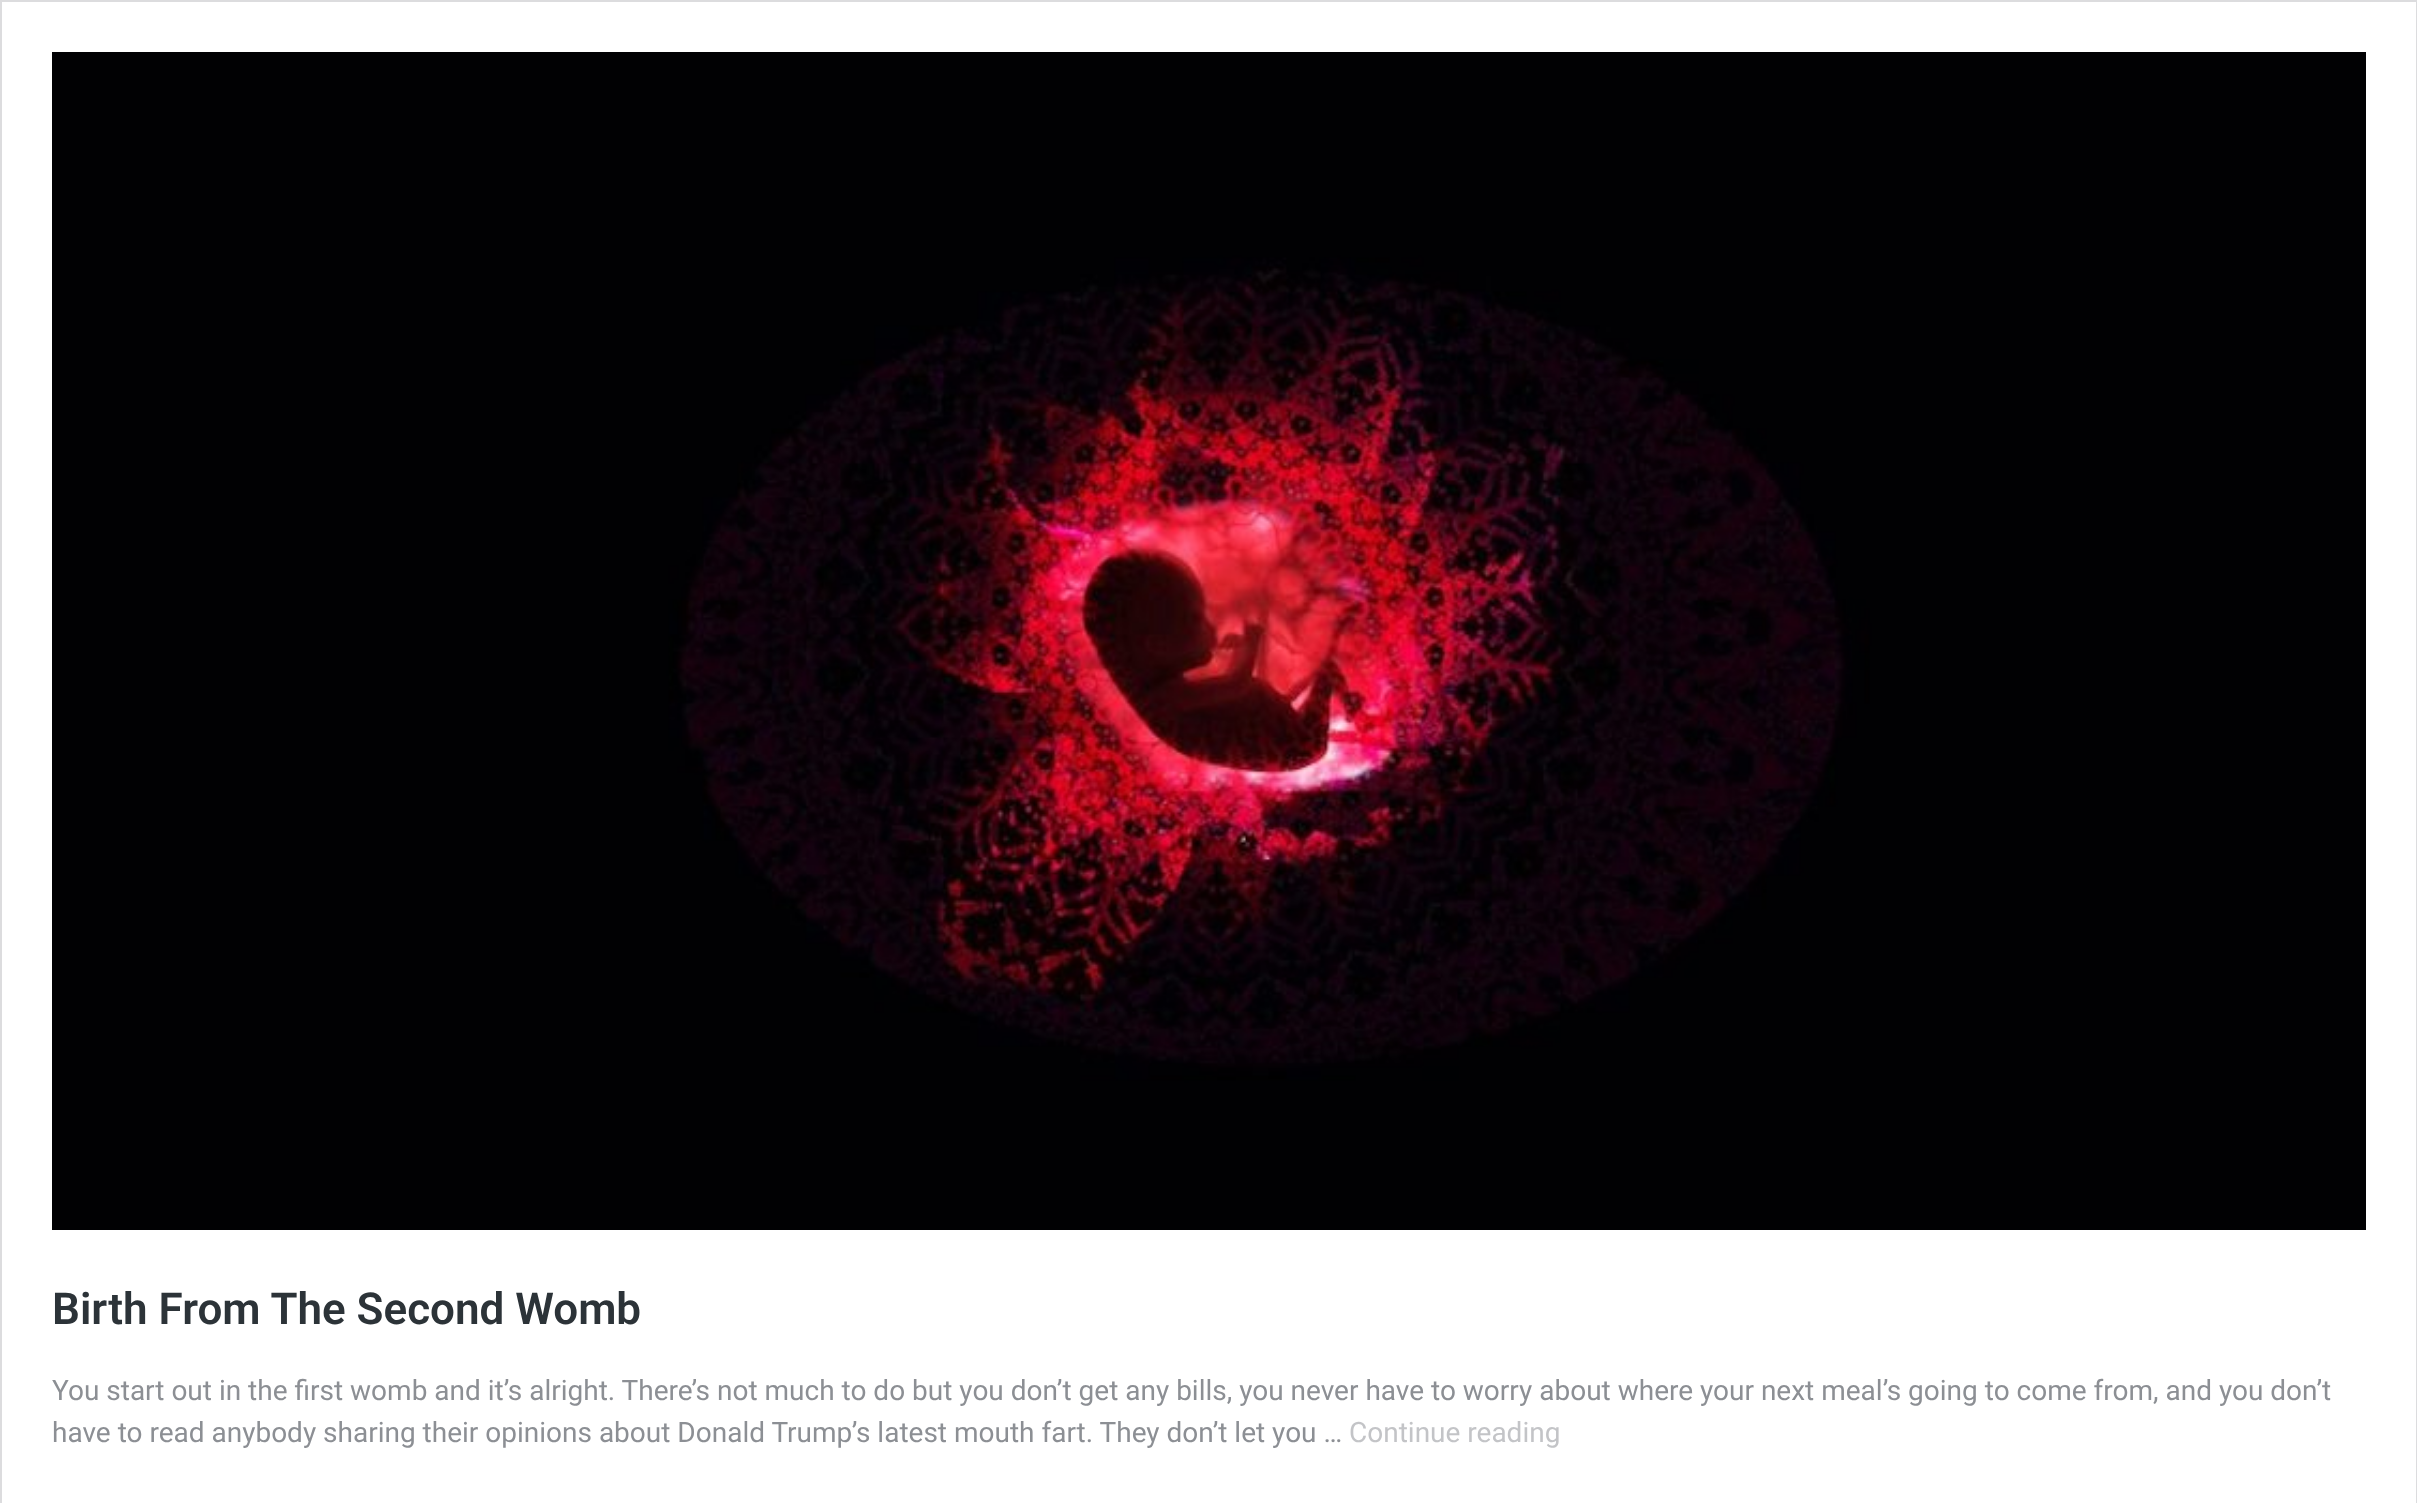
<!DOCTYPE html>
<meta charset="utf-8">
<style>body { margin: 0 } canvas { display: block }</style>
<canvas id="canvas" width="2417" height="1503"></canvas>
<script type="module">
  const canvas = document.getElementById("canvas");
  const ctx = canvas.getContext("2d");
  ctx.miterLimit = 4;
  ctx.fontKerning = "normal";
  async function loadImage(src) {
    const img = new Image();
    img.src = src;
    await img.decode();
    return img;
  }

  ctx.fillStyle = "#ffffff";
  ctx.fillRect(0, 0, 2417, 1503);
  ctx.strokeStyle = "#dcdcde";
  ctx.lineWidth = 2;
  ctx.strokeRect(1, 1, 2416, 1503);
  ctx.drawImage(await loadImage("img1.png"), 52, 52, 2314, 1178);
  ctx.font = "600 44px Roboto";
  ctx.fillStyle = "#2c3338";
  ctx.fillText("Birth From The Second Womb", 52, 1324);
  ctx.font = "28px Roboto";
  ctx.fillStyle = "#8c8f94";
  ctx.fillText("You start out in the first womb and it’s alright. There’s not much to do but you don’t get any bills, you never have to worry about where your next meal’s going to come from, and you don’t", 52, 1400);
  ctx.fillText("have to read anybody sharing their opinions about Donald Trump’s latest mouth fart. They don’t let you …", 52, 1442);
  ctx.fillStyle = "#c3c4c7";
  ctx.fillText("Continue reading", 1349, 1442);
</script>
